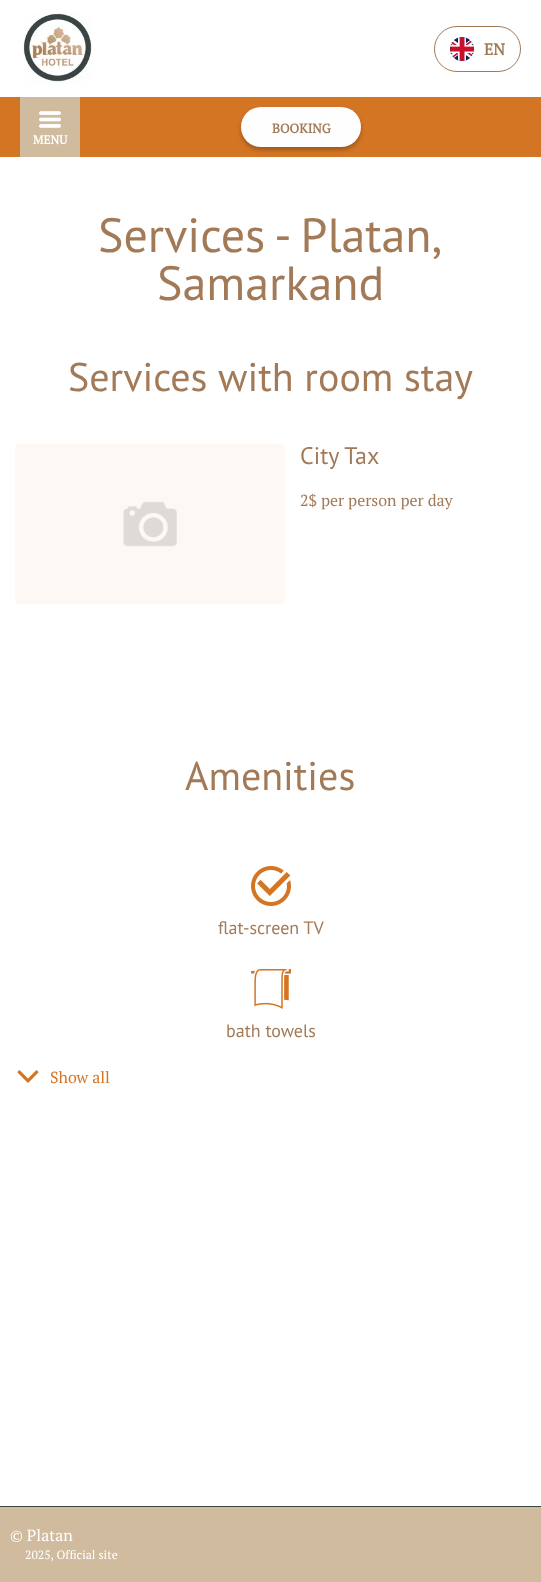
<!DOCTYPE html>
<meta charset="utf-8">
<style>body { margin: 0 } canvas { display: block }</style>
<canvas id="canvas" width="541" height="1582"></canvas>
<script type="module">
  const canvas = document.getElementById("canvas");
  const ctx = canvas.getContext("2d");
  ctx.miterLimit = 4;
  ctx.fontKerning = "normal";
  async function loadImage(src) {
    const img = new Image();
    img.src = src;
    await img.decode();
    return img;
  }

  ctx.fillStyle = "#ffffff";
  ctx.fillRect(0, 0, 541, 1582);
  ctx.drawImage(await loadImage("img1.png"), 23, 13, 70, 72);
  ctx.beginPath();
  ctx.roundRect(434.5, 26.5, 86, 45, 22.5);
  ctx.strokeStyle = "#a37a57";
  ctx.stroke();
  ctx.drawImage(await loadImage("img2.png"), 450, 37, 24, 24);
  ctx.beginPath();
  ctx.arc(462, 49, 11.5, 0, Math.PI * 2);
  ctx.strokeStyle = "rgba(61, 61, 61, 0.16)";
  ctx.stroke();
  ctx.font = "bold 16px PT Serif";
  ctx.fillStyle = "#a37a57";
  ctx.fillText("EN", 484, 55);
  ctx.fillStyle = "#d47524";
  ctx.fillRect(0, 97, 541, 60);
  ctx.fillStyle = "rgba(0, 0, 0, 0.25)";
  ctx.filter = "blur(2px)";
  ctx.beginPath();
  ctx.roundRect(241, 110, 120, 40, 20);
  ctx.fill();
  ctx.filter = "none";
  ctx.fillStyle = "#fefefe";
  ctx.beginPath();
  ctx.roundRect(241, 107, 120, 40, 20);
  ctx.fill();
  ctx.font = "bold 13px PT Serif";
  ctx.fillStyle = "#a37a57";
  ctx.fillText("BOOKING", 272, 133);
  ctx.fillStyle = "#d1bb9e";
  ctx.fillRect(20, 97, 60, 60);
  ctx.drawImage(await loadImage("img3.png"), 39, 111, 22, 17);
  ctx.font = "bold 12px PT Serif";
  ctx.fillStyle = "#ffffff";
  ctx.fillText("MENU", 33, 144);
  ctx.font = "48px PT Sans";
  ctx.fillStyle = "#a37a57";
  ctx.fillText("Services - Platan,", 98, 252);
  ctx.fillText("Samarkand", 157, 300);
  ctx.font = "40px PT Sans";
  ctx.fillText("Services with room stay", 68, 391);
  ctx.fillStyle = "#fdf8f4";
  ctx.beginPath();
  ctx.roundRect(15, 444, 270, 160, 5);
  ctx.fill();
  ctx.drawImage(await loadImage("img4.png"), 123, 501, 54, 46);
  ctx.font = "24px PT Sans";
  ctx.fillStyle = "#a37a57";
  ctx.fillText("City Tax", 300, 464);
  ctx.font = "16px PT Serif";
  ctx.fillText("2$ per person per day", 300, 506);
  ctx.font = "40px PT Sans";
  ctx.fillText("Amenities", 185, 790);
  ctx.drawImage(await loadImage("img5.png"), 251, 866, 40, 40);
  ctx.font = "18px PT Sans";
  ctx.fillText("flat-screen TV", 218, 934);
  ctx.drawImage(await loadImage("img6.png"), 251, 969, 40, 40);
  ctx.fillText("bath towels", 226, 1037);
  ctx.drawImage(await loadImage("img7.png"), 17, 1070, 22, 13);
  ctx.font = "16px PT Serif";
  ctx.fillStyle = "#d47524";
  ctx.fillText("Show all", 50, 1083);
  ctx.fillStyle = "#d1bb9e";
  ctx.fillRect(0, 1507, 541, 75);
  ctx.fillStyle = "#384445";
  ctx.fillRect(0, 1506, 541, 1);
  ctx.fillStyle = "#ffffff";
  ctx.fillText("© Platan", 10, 1541);
  ctx.font = "12px PT Serif";
  ctx.fillText("2025, Official site", 25, 1559);
</script>
